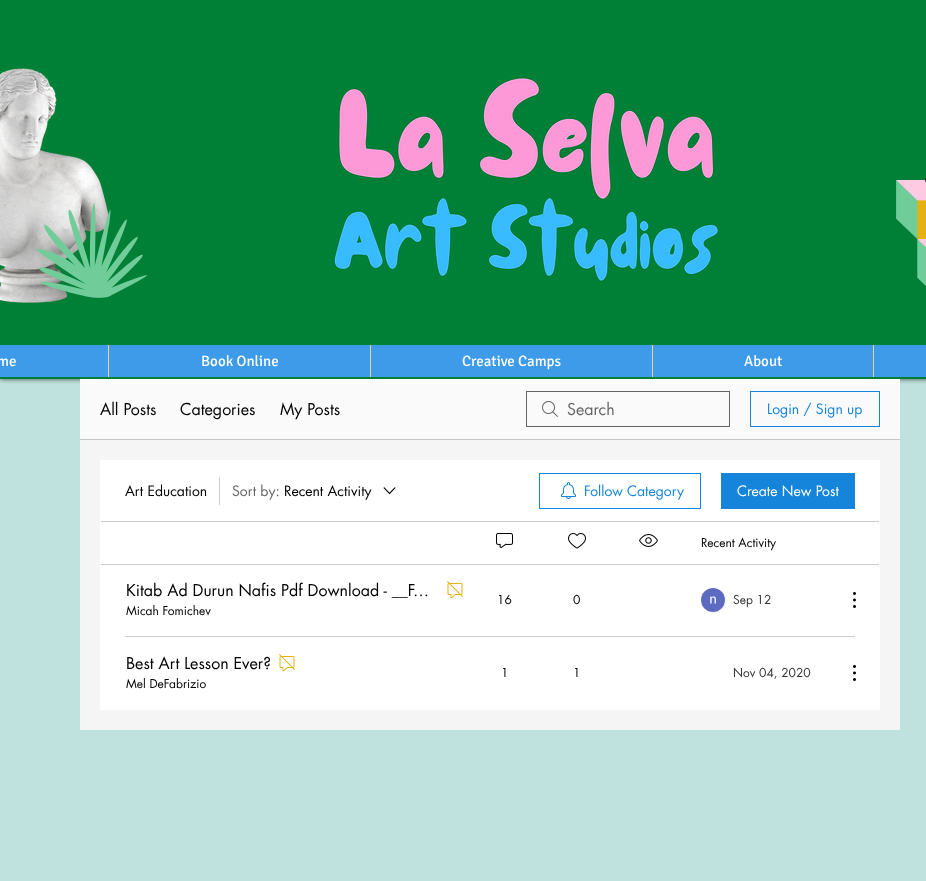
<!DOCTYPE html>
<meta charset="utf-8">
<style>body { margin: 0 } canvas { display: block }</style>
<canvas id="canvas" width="926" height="881"></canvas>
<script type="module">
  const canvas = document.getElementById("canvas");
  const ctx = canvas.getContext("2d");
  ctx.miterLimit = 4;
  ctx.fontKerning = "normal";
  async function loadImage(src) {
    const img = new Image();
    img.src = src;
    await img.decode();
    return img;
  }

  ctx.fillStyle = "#c0e2de";
  ctx.fillRect(0, 0, 926, 881);
  ctx.fillStyle = "rgba(0, 0, 0, 0.7)";
  ctx.filter = "blur(2.5px)";
  ctx.beginPath();
  ctx.rect(0, 0, 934, 379);
  ctx.fill();
  ctx.filter = "none";
  ctx.fillStyle = "#008037";
  ctx.fillRect(0, 0, 926, 379);
  ctx.drawImage(await loadImage("img1.png"), 0, 68, 110, 235);
  ctx.drawImage(await loadImage("img2.png"), 333, 77, 386, 205);
  ctx.drawImage(await loadImage("img5.png"), 896, 180, 30, 106);
  ctx.drawImage(await loadImage("img3.png"), 925, 177, 1, 6);
  ctx.drawImage(await loadImage("img4.png"), 36, 203, 111, 95);
  ctx.fillStyle = "#3d9be9";
  ctx.fillRect(0, 345, 926, 32);
  ctx.font = "15px Signika";
  ctx.fillStyle = "#ffffff";
  ctx.fillText("me", -3, 366);
  ctx.fillStyle = "#eed382";
  ctx.fillRect(108, 345, 1, 32);
  ctx.fillStyle = "#ffffff";
  ctx.fillText("Book Online", 201, 366);
  ctx.fillStyle = "#eed382";
  ctx.fillRect(370, 345, 1, 32);
  ctx.fillStyle = "#ffffff";
  ctx.fillText("Creative Camps", 462, 366);
  ctx.fillStyle = "#eed382";
  ctx.fillRect(652, 345, 1, 32);
  ctx.fillStyle = "#ffffff";
  ctx.fillText("About", 744, 366);
  ctx.fillStyle = "#eed382";
  ctx.fillRect(873, 345, 1, 32);
  ctx.fillStyle = "#f5f5f5";
  ctx.fillRect(80, 440, 820, 290);
  ctx.fillStyle = "#fafafa";
  ctx.fillRect(80, 379, 820, 60);
  ctx.fillStyle = "#c8c8c8";
  ctx.fillRect(80, 439, 820, 1);
  ctx.font = "16px futura";
  ctx.fillStyle = "#000000";
  ctx.fillText("All Posts", 100, 415);
  ctx.fillText("Categories", 180, 415);
  ctx.fillText("My Posts", 280, 415);
  ctx.drawImage(await loadImage("img6.png"), 542, 401, 16, 16);
  ctx.strokeStyle = "#646464";
  ctx.strokeRect(526.5, 391.5, 203, 35);
  ctx.fillStyle = "#666666";
  ctx.fillText("Search", 567, 415);
  ctx.strokeStyle = "#1585db";
  ctx.strokeRect(750.5, 391.5, 129, 35);
  ctx.font = "14px futura";
  ctx.fillStyle = "#1585db";
  ctx.fillText("Login / Sign up", 767, 414);
  ctx.fillStyle = "#ffffff";
  ctx.fillRect(100, 460, 780, 250);
  ctx.fillStyle = "#000000";
  ctx.fillText("Art Education", 125, 496);
  ctx.fillStyle = "#cccccc";
  ctx.fillRect(219, 477, 1, 28);
  ctx.fillStyle = "#666666";
  ctx.fillText("Sort by:", 232, 496);
  ctx.fillStyle = "#000000";
  ctx.fillText("Recent Activity", 284, 496);
  ctx.drawImage(await loadImage("img7.png"), 383, 487, 13, 8);
  ctx.strokeRect(539.5, 473.5, 161, 35);
  ctx.drawImage(await loadImage("img8.png"), 561, 482, 15, 17);
  ctx.fillStyle = "#1585db";
  ctx.fillText("Follow Category", 584, 496);
  ctx.fillRect(721, 473, 134, 36);
  ctx.fillStyle = "#ffffff";
  ctx.fillText("Create New Post", 737, 496);
  ctx.fillStyle = "#cccccc";
  ctx.fillRect(101, 521, 778, 1);
  ctx.drawImage(await loadImage("img9.png"), 496, 533, 17, 15);
  ctx.drawImage(await loadImage("img10.png"), 568, 533, 18, 16);
  ctx.drawImage(await loadImage("img11.png"), 639, 534, 19, 13);
  ctx.font = "12px futura";
  ctx.fillStyle = "#000000";
  ctx.fillText("Recent Activity", 701, 547);
  ctx.fillStyle = "#cccccc";
  ctx.fillRect(101, 564, 778, 1);
  ctx.font = "16px futura";
  ctx.fillStyle = "#000000";
  ctx.fillText("Kitab Ad Durun Nafis Pdf Download - __F…", 126, 596);
  ctx.drawImage(await loadImage("img12.png"), 447, 581, 16, 18);
  ctx.font = "12px futura";
  ctx.fillText("Micah Fomichev", 126, 615);
  ctx.fillText("16", 497, 604);
  ctx.fillText("0", 573, 604);
  ctx.drawImage(await loadImage("img13.png"), 701, 588, 24, 24);
  ctx.fillStyle = "#333333";
  ctx.fillText("Sep 12", 733, 604);
  ctx.drawImage(await loadImage("img14.png"), 853, 592, 3, 16);
  ctx.fillStyle = "#cccccc";
  ctx.fillRect(125, 636, 730, 1);
  ctx.font = "16px futura";
  ctx.fillStyle = "#000000";
  ctx.fillText("Best Art Lesson Ever?", 126, 669);
  ctx.drawImage(await loadImage("img12.png"), 279, 654, 16, 18);
  ctx.font = "12px futura";
  ctx.fillText("Mel DeFabrizio", 126, 688);
  ctx.fillText("1", 501, 677);
  ctx.fillText("1", 573, 677);
  ctx.fillStyle = "#333333";
  ctx.fillText("Nov 04, 2020", 733, 677);
  ctx.drawImage(await loadImage("img14.png"), 853, 665, 3, 16);
</script>
